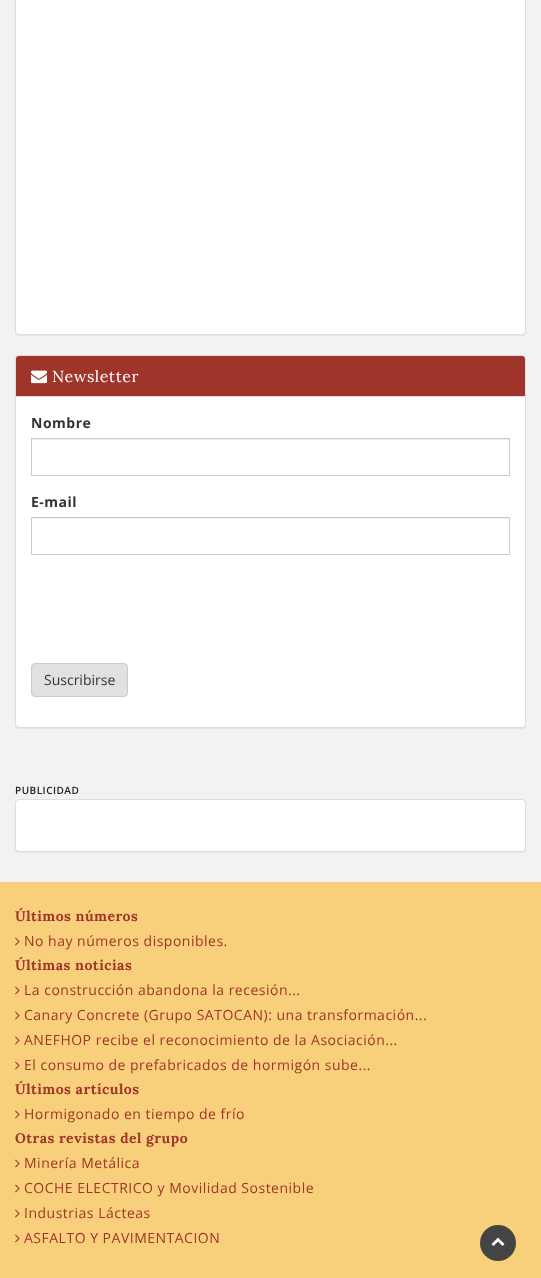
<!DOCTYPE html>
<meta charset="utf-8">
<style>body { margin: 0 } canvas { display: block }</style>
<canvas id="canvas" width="541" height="1278"></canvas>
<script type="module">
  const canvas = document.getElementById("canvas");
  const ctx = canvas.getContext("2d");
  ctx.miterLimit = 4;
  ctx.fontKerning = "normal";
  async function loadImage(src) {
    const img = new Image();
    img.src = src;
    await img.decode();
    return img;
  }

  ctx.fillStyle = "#f2f2f2";
  ctx.fillRect(0, 0, 541, 1278);
  ctx.fillStyle = "rgba(0, 0, 0, 0.05)";
  ctx.filter = "blur(0.5px)";
  ctx.beginPath();
  ctx.roundRect(15, -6, 511, 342, 4);
  ctx.fill();
  ctx.filter = "none";
  ctx.fillStyle = "#ffffff";
  ctx.beginPath();
  ctx.roundRect(15.5, -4.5, 510, 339, 3.5);
  ctx.fill();
  ctx.strokeStyle = "#dddddd";
  ctx.stroke();
  ctx.fillStyle = "rgba(0, 0, 0, 0.05)";
  ctx.filter = "blur(0.5px)";
  ctx.beginPath();
  ctx.roundRect(15, 356, 511, 373, 4);
  ctx.fill();
  ctx.filter = "none";
  ctx.fillStyle = "#ffffff";
  ctx.beginPath();
  ctx.roundRect(15.5, 355.5, 510, 372, 3.5);
  ctx.fill();
  ctx.stroke();
  ctx.fillStyle = "#9f342a";
  ctx.beginPath();
  ctx.roundRect(16, 356, 509, 41, [3, 3, 0, 0]);
  ctx.fill();
  ctx.fillStyle = "#dddddd";
  ctx.fillRect(16, 396, 509, 1);
  ctx.drawImage(await loadImage("img1.png"), 31, 370, 16, 14);
  ctx.letterSpacing = "0.5px";
  ctx.font = "16px Lora";
  ctx.fillStyle = "#ffffff";
  ctx.fillText("Newsletter", 52, 382);
  ctx.font = "bold 14px Open Sans";
  ctx.fillStyle = "#333333";
  ctx.fillText("Nombre", 31, 428);
  ctx.fillStyle = "#ececec";
  ctx.fillRect(32, 439, 477, 1);
  ctx.strokeStyle = "#cccccc";
  ctx.strokeRect(31.5, 438.5, 478, 37);
  ctx.fillStyle = "#333333";
  ctx.fillText("E-mail", 31, 507);
  ctx.fillStyle = "#ececec";
  ctx.fillRect(32, 518, 477, 1);
  ctx.strokeRect(31.5, 517.5, 478, 37);
  ctx.fillStyle = "#e1e1e1";
  ctx.beginPath();
  ctx.roundRect(31.5, 663.5, 96, 33, 3.5);
  ctx.fill();
  ctx.stroke();
  ctx.letterSpacing = "0px";
  ctx.font = "14px Open Sans";
  ctx.fillStyle = "#333333";
  ctx.fillText("Suscribirse", 44, 685);
  ctx.letterSpacing = "0.5px";
  ctx.font = "600 10px Open Sans";
  ctx.fillStyle = "#222222";
  ctx.fillText("PUBLICIDAD", 15, 794);
  ctx.fillStyle = "rgba(0, 0, 0, 0.05)";
  ctx.filter = "blur(0.5px)";
  ctx.beginPath();
  ctx.roundRect(15, 800, 511, 53, 4);
  ctx.fill();
  ctx.filter = "none";
  ctx.fillStyle = "#ffffff";
  ctx.beginPath();
  ctx.roundRect(15.5, 799.5, 510, 52, 3.5);
  ctx.fill();
  ctx.strokeStyle = "#dddddd";
  ctx.stroke();
  ctx.fillStyle = "#f8cf7a";
  ctx.fillRect(0, 882, 541, 396);
  ctx.font = "bold 14px Lora";
  ctx.fillStyle = "#9f342a";
  ctx.fillText("Últimos números", 15, 921);
  ctx.drawImage(await loadImage("img2.png"), 15, 937, 5, 9);
  ctx.font = "14px Open Sans";
  ctx.fillText("No hay números disponibles.", 24, 946);
  ctx.font = "bold 14px Lora";
  ctx.fillText("Últimas noticias", 15, 970);
  ctx.drawImage(await loadImage("img2.png"), 15, 986, 5, 9);
  ctx.font = "14px Open Sans";
  ctx.fillText("La construcción abandona la recesión...", 24, 995);
  ctx.drawImage(await loadImage("img2.png"), 15, 1011, 5, 9);
  ctx.fillText("Canary Concrete (Grupo SATOCAN): una transformación...", 24, 1020);
  ctx.drawImage(await loadImage("img2.png"), 15, 1036, 5, 9);
  ctx.fillText("ANEFHOP recibe el reconocimiento de la Asociación...", 24, 1045);
  ctx.drawImage(await loadImage("img2.png"), 15, 1061, 5, 9);
  ctx.fillText("El consumo de prefabricados de hormigón sube...", 24, 1070);
  ctx.font = "bold 14px Lora";
  ctx.fillText("Últimos artículos", 15, 1094);
  ctx.drawImage(await loadImage("img2.png"), 15, 1110, 5, 9);
  ctx.font = "14px Open Sans";
  ctx.fillText("Hormigonado en tiempo de frío", 24, 1119);
  ctx.font = "bold 14px Lora";
  ctx.fillText("Otras revistas del grupo", 15, 1143);
  ctx.drawImage(await loadImage("img2.png"), 15, 1159, 5, 9);
  ctx.font = "14px Open Sans";
  ctx.fillText("Minería Metálica", 24, 1168);
  ctx.drawImage(await loadImage("img2.png"), 15, 1184, 5, 9);
  ctx.fillText("COCHE ELECTRICO y Movilidad Sostenible", 24, 1193);
  ctx.drawImage(await loadImage("img2.png"), 15, 1209, 5, 9);
  ctx.fillText("Industrias Lácteas", 24, 1218);
  ctx.drawImage(await loadImage("img2.png"), 15, 1234, 5, 9);
  ctx.fillText("ASFALTO Y PAVIMENTACION", 24, 1243);
  ctx.fillStyle = "#444444";
  ctx.beginPath();
  ctx.arc(498, 1243, 18, 0, Math.PI * 2);
  ctx.fill();
  ctx.drawImage(await loadImage("img3.png"), 491, 1237, 14, 9);
</script>
